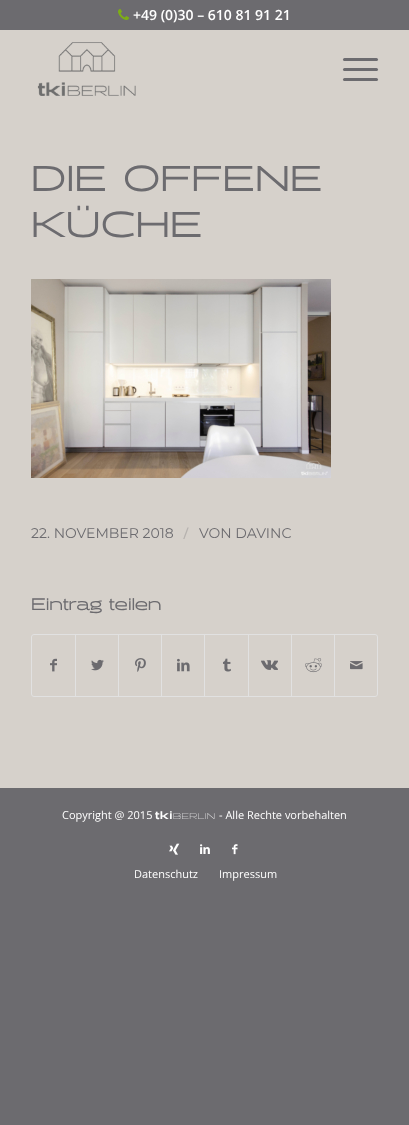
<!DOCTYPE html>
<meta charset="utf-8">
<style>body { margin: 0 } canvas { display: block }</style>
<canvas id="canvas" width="409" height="1125"></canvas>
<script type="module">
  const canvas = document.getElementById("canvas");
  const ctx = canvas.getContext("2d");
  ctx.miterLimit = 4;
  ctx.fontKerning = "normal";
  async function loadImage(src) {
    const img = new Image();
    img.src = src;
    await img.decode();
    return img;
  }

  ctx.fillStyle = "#6c6b6f";
  ctx.fillRect(0, 0, 409, 1125);
  ctx.drawImage(await loadImage("img1.png"), 118, 9, 11, 11);
  ctx.font = "600 14px Open Sans";
  ctx.fillStyle = "#ffffff";
  ctx.fillText("+49 (0)30 – 610 81 91 21", 133, 20);
  ctx.fillStyle = "#d6d1cb";
  ctx.fillRect(0, 30, 409, 758);
  ctx.drawImage(await loadImage("img2.png"), 37, 42, 99, 54);
  ctx.fillStyle = "#6c6b6f";
  ctx.beginPath();
  ctx.roundRect(343, 68, 35, 3, 1.5);
  ctx.fill();
  ctx.beginPath();
  ctx.roundRect(343, 58, 35, 3, 1.5);
  ctx.fill();
  ctx.beginPath();
  ctx.roundRect(343, 78, 35, 3, 1.5);
  ctx.fill();
  ctx.letterSpacing = "1px";
  ctx.font = "bold 34.5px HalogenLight";
  ctx.fillText("DIE OFFENE", 31, 191);
  ctx.fillText("KÜCHE", 31, 237);
  ctx.drawImage(await loadImage("img3.png"), 31, 279, 300, 199);
  ctx.letterSpacing = "0px";
  ctx.font = "100 14px Montserrat";
  ctx.fillText("22. NOVEMBER 2018", 31, 538);
  ctx.font = "16px Open Sans";
  ctx.fillStyle = "#b6b2af";
  ctx.fillText("/", 183, 539);
  ctx.font = "100 14px Montserrat";
  ctx.fillStyle = "#6c6b6f";
  ctx.fillText("VON DAVINC", 199, 538);
  ctx.font = "bold 16px HalogenLight";
  ctx.fillText("Eintrag teilen", 31, 610);
  ctx.beginPath();
  ctx.roundRect(31.5, 634.5, 346, 62, 2.5);
  ctx.strokeStyle = "#e1e1e1";
  ctx.stroke();
  ctx.drawImage(await loadImage("img4.png"), 50, 658, 7, 14);
  ctx.fillStyle = "#e1e1e1";
  ctx.fillRect(75, 635, 1, 61);
  ctx.drawImage(await loadImage("img5.png"), 91, 659, 13, 12);
  ctx.fillRect(118, 635, 1, 61);
  ctx.drawImage(await loadImage("img6.png"), 135, 658, 11, 14);
  ctx.fillRect(161, 635, 1, 61);
  ctx.drawImage(await loadImage("img7.png"), 177, 658, 13, 14);
  ctx.fillRect(204, 635, 1, 61);
  ctx.drawImage(await loadImage("img8.png"), 223, 658, 8, 14);
  ctx.fillRect(248, 635, 1, 61);
  ctx.drawImage(await loadImage("img9.png"), 261, 660, 17, 10);
  ctx.fillRect(291, 635, 1, 61);
  ctx.drawImage(await loadImage("img10.png"), 305, 658, 17, 15);
  ctx.fillRect(334, 635, 1, 61);
  ctx.drawImage(await loadImage("img11.png"), 350, 661, 13, 9);
  ctx.font = "11px Open Sans";
  ctx.fillStyle = "#ffffff";
  ctx.fillText("Copyright @ 2015", 62, 819);
  ctx.letterSpacing = "0.5px";
  ctx.font = "11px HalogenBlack";
  ctx.fillText("tki", 155, 819);
  ctx.letterSpacing = "0.25px";
  ctx.font = "8.25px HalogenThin";
  ctx.fillText("BERLIN", 173, 819);
  ctx.letterSpacing = "0px";
  ctx.font = "11px Open Sans";
  ctx.fillText("- Alle Rechte vorbehalten", 219, 819);
  ctx.drawImage(await loadImage("img12.png"), 169, 843, 11, 12);
  ctx.drawImage(await loadImage("img13.png"), 200, 844, 10, 10);
  ctx.drawImage(await loadImage("img14.png"), 232, 844, 6, 11);
  ctx.fillText("Datenschutz", 134, 878);
  ctx.fillText("Impressum", 219, 878);
</script>
